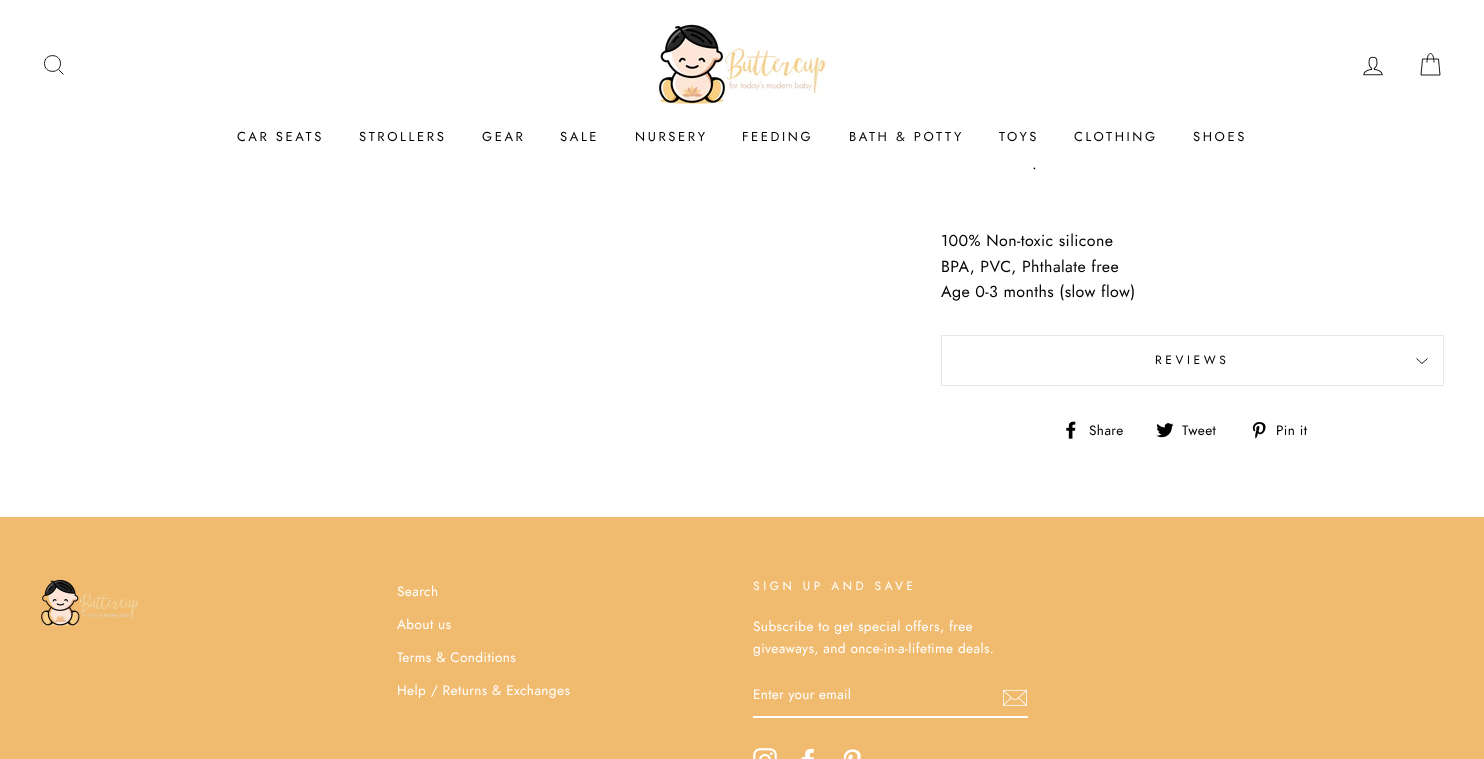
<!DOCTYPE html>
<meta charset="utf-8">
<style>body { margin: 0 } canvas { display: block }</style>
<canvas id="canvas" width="1484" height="759"></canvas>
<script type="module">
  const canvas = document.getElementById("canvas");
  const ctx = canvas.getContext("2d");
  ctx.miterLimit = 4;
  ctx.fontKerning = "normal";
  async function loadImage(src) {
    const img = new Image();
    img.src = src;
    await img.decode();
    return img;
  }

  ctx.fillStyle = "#ffffff";
  ctx.fillRect(0, 0, 1484, 759);
  ctx.fillStyle = "rgba(0, 0, 0, 0.2)";
  ctx.filter = "blur(0.5px)";
  ctx.beginPath();
  ctx.rect(0, 0, 1484, 165);
  ctx.fill();
  ctx.filter = "none";
  ctx.fillStyle = "#ffffff";
  ctx.fillRect(0, 0, 1484, 165);
  ctx.beginPath();
  ctx.moveTo(60.5, 63.5);
  ctx.bezierCurveTo(60.5, 74, 44.5, 74, 44.5, 63.5);
  ctx.bezierCurveTo(44.5, 53, 60.5, 53, 60.5, 63.5);
  ctx.closePath();
  ctx.moveTo(63.5, 74.5);
  ctx.lineTo(58.5, 69.5);
  ctx.strokeStyle = "#000000";
  ctx.lineWidth = 0.9;
  ctx.stroke();
  ctx.drawImage(await loadImage("img1.png"), 657, 24, 169, 84);
  ctx.drawImage(await loadImage("img2.png"), 1363, 56, 20, 20);
  ctx.beginPath();
  ctx.moveTo(1427, 62.5);
  ctx.bezierCurveTo(1427, 50.5, 1434, 50.5, 1434, 62.5);
  ctx.moveTo(1422.5, 59);
  ctx.lineTo(1438.5, 59);
  ctx.lineTo(1440, 75);
  ctx.lineTo(1421, 75);
  ctx.closePath();
  ctx.stroke();
  ctx.letterSpacing = "2.6px";
  ctx.font = "13px Jost";
  ctx.fillStyle = "#000000";
  ctx.fillText("CAR SEATS", 237, 141);
  ctx.fillText("STROLLERS", 359, 141);
  ctx.fillText("GEAR", 482, 141);
  ctx.fillText("SALE", 560, 141);
  ctx.fillText("NURSERY", 635, 141);
  ctx.fillText("FEEDING", 742, 141);
  ctx.fillText("BATH & POTTY", 849, 141);
  ctx.fillText("TOYS", 999, 141);
  ctx.fillText("CLOTHING", 1074, 141);
  ctx.fillText("SHOES", 1193, 141);
  ctx.letterSpacing = "0.4px";
  ctx.font = "16px Jost";
  ctx.fillText(".", 1032, 169);
  ctx.fillText("100% Non-toxic silicone", 941, 246);
  ctx.fillText("BPA, PVC, Phthalate free", 941, 272);
  ctx.fillText("Age 0-3 months (slow flow)", 941, 297);
  ctx.fillStyle = "#e8e8e1";
  ctx.fillRect(941, 385, 503, 1);
  ctx.fillRect(941, 335, 503, 1);
  ctx.fillRect(1443, 335, 1, 50);
  ctx.fillRect(941, 335, 1, 50);
  ctx.letterSpacing = "3.6px";
  ctx.font = "12px Jost";
  ctx.fillStyle = "#000000";
  ctx.fillText("REVIEWS", 1155, 364);
  ctx.beginPath();
  ctx.moveTo(1416.5, 358.5);
  ctx.lineTo(1422, 363.5);
  ctx.lineTo(1427.5, 358.5);
  ctx.stroke();
  ctx.drawImage(await loadImage("img3.png"), 1066, 421, 10, 18);
  ctx.letterSpacing = "0.4px";
  ctx.font = "13.6px Jost";
  ctx.fillText("Share", 1089, 435);
  ctx.drawImage(await loadImage("img4.png"), 1156, 423, 18, 15);
  ctx.fillText("Tweet", 1182, 435);
  ctx.drawImage(await loadImage("img5.png"), 1252, 422, 14, 17);
  ctx.fillText("Pin it", 1276, 435);
  ctx.fillStyle = "#f1bb6f";
  ctx.fillRect(0, 517, 1484, 242);
  ctx.drawImage(await loadImage("img6.png"), 41, 579, 97, 47);
  ctx.fillStyle = "#ffffff";
  ctx.fillText("Search", 397, 596);
  ctx.fillText("About us", 397, 629);
  ctx.fillText("Terms & Conditions", 397, 662);
  ctx.fillText("Help / Returns & Exchanges", 397, 695);
  ctx.letterSpacing = "3.6px";
  ctx.font = "12px Jost";
  ctx.fillText("SIGN UP AND SAVE", 753, 590);
  ctx.letterSpacing = "0.4px";
  ctx.font = "13.6px Jost";
  ctx.fillText("Subscribe to get special offers, free", 753, 631);
  ctx.fillText("giveaways, and once-in-a-lifetime deals.", 753, 653);
  ctx.fillRect(753, 716, 275, 2);
  ctx.letterSpacing = "0.3px";
  ctx.fillText("Enter your email", 753, 699);
  ctx.drawImage(await loadImage("img7.png"), 1003, 689, 24, 17);
  ctx.drawImage(await loadImage("img8.png"), 753, 748, 24, 11);
  ctx.drawImage(await loadImage("img9.png"), 801, 748, 13, 11);
  ctx.drawImage(await loadImage("img10.png"), 843, 749, 18, 10);
</script>
